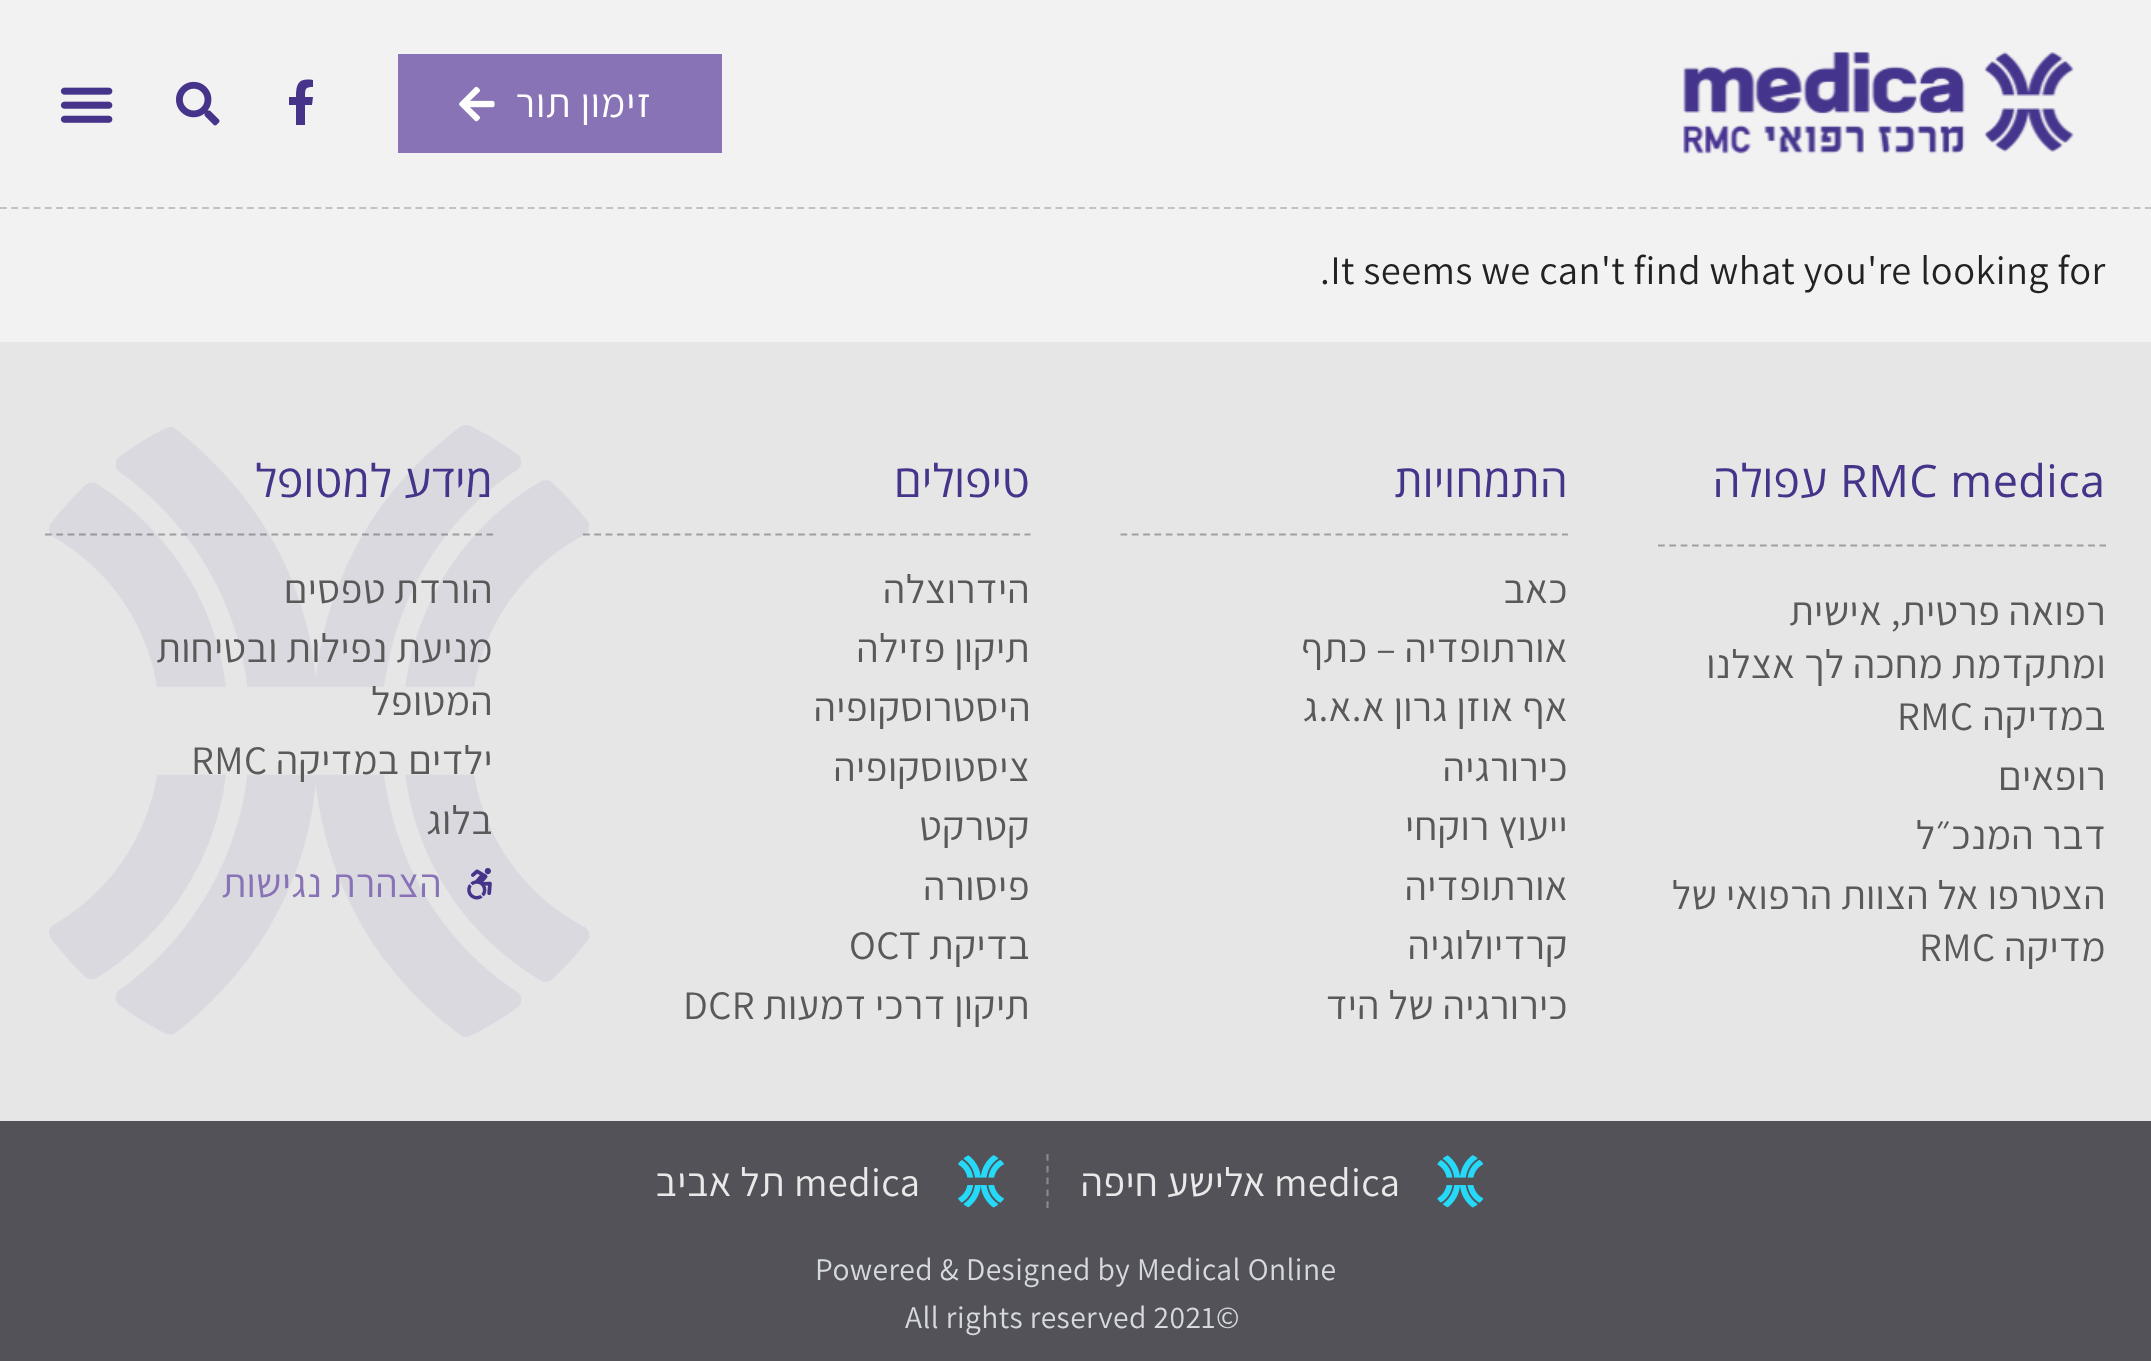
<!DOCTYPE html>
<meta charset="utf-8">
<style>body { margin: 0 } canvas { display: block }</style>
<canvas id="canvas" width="2151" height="1361"></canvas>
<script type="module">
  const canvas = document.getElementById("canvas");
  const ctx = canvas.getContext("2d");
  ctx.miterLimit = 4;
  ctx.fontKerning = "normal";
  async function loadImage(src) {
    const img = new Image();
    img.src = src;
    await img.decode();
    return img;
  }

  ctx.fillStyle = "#f2f2f2";
  ctx.fillRect(0, 0, 2151, 1361);
  ctx.beginPath();
  ctx.moveTo(0, 208);
  ctx.lineTo(2151, 208);
  ctx.strokeStyle = "#c2c2c2";
  ctx.lineWidth = 2.2;
  ctx.setLineDash([6.75, 4.48]);
  ctx.stroke();
  ctx.drawImage(await loadImage("img1.png"), 1683, 51, 392, 103);
  ctx.fillStyle = "#8873b6";
  ctx.fillRect(398, 54, 324, 99);
  ctx.letterSpacing = "1px";
  ctx.direction = "rtl";
  ctx.font = "40.5px Assistant";
  ctx.fillStyle = "#ffffff";
  ctx.fillText("זימון תור", 652, 117);
  ctx.drawImage(await loadImage("img2.png"), 459, 86, 36, 36);
  ctx.fillStyle = "#46348a";
  ctx.beginPath();
  ctx.moveTo(312, 105);
  ctx.lineTo(305, 105);
  ctx.lineTo(305, 125);
  ctx.lineTo(296, 125);
  ctx.lineTo(296, 105);
  ctx.lineTo(289, 105);
  ctx.lineTo(289, 97);
  ctx.lineTo(296, 97);
  ctx.bezierCurveTo(296, 83, 299, 78, 313, 80);
  ctx.lineTo(313, 87);
  ctx.bezierCurveTo(305, 87, 305, 89, 305, 97);
  ctx.lineTo(313, 97);
  ctx.closePath();
  ctx.fill();
  ctx.drawImage(await loadImage("img3.png"), 176, 81, 44, 45);
  ctx.drawImage(await loadImage("img4.png"), 60, 87, 53, 36);
  ctx.letterSpacing = "0.45px";
  ctx.direction = "ltr";
  ctx.fillStyle = "#222222";
  ctx.fillText(".It seems we can't find what you're looking for", 1320, 284);
  ctx.fillStyle = "#e6e6e6";
  ctx.fillRect(0, 342, 2151, 779);
  ctx.drawImage(await loadImage("img5.png"), 49, 425, 541, 612);
  ctx.font = "45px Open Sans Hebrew";
  ctx.fillStyle = "#46348a";
  ctx.fillText("RMC medica", 1840, 497);
  ctx.direction = "rtl";
  ctx.fillText("עפולה", 1828, 497);
  ctx.beginPath();
  ctx.moveTo(1658, 545.5);
  ctx.lineTo(2106, 545.5);
  ctx.strokeStyle = "#9f9f9f";
  ctx.setLineDash([6.75, 4.57]);
  ctx.stroke();
  ctx.font = "40.5px Assistant";
  ctx.fillStyle = "#595959";
  ctx.fillText("רפואה פרטית, אישית", 2106, 625);
  ctx.fillText("ומתקדמת מחכה לך אצלנו", 2106, 678);
  ctx.fillText("במדיקה", 2106, 730);
  ctx.direction = "ltr";
  ctx.fillText("RMC", 1897, 730);
  ctx.direction = "rtl";
  ctx.fillText("רופאים", 2106, 790);
  ctx.fillText("דבר המנכ״ל", 2106, 849);
  ctx.fillText("הצטרפו אל הצוות הרפואי של", 2106, 909);
  ctx.fillText("מדיקה", 2106, 961);
  ctx.direction = "ltr";
  ctx.fillText("RMC", 1919, 961);
  ctx.direction = "rtl";
  ctx.font = "45px Open Sans Hebrew";
  ctx.fillStyle = "#46348a";
  ctx.fillText("התמחויות", 1568, 497);
  ctx.beginPath();
  ctx.moveTo(1120.5, 534.5);
  ctx.lineTo(1568, 534.5);
  ctx.stroke();
  ctx.font = "40.5px Assistant";
  ctx.fillStyle = "#595959";
  ctx.fillText("כאב", 1568, 603);
  ctx.fillText("אורתופדיה – כתף", 1568, 662);
  ctx.fillText("אף אוזן גרון א.א.ג", 1568, 721);
  ctx.fillText("כירורגיה", 1568, 781);
  ctx.fillText("ייעוץ רוקחי", 1568, 840);
  ctx.fillText("אורתופדיה", 1568, 900);
  ctx.fillText("קרדיולוגיה", 1568, 959);
  ctx.fillText("כירורגיה של היד", 1568, 1019);
  ctx.font = "45px Open Sans Hebrew";
  ctx.fillStyle = "#46348a";
  ctx.fillText("טיפולים", 1030, 497);
  ctx.beginPath();
  ctx.moveTo(583, 534.5);
  ctx.lineTo(1030.5, 534.5);
  ctx.strokeStyle = "rgba(0, 0, 0, 0.31)";
  ctx.stroke();
  ctx.font = "40.5px Assistant";
  ctx.fillStyle = "#595959";
  ctx.fillText("הידרוצלה", 1030, 603);
  ctx.fillText("תיקון פזילה", 1030, 662);
  ctx.fillText("היסטרוסקופיה", 1031, 721);
  ctx.fillText("ציסטוסקופיה", 1030, 781);
  ctx.fillText("קטרקט", 1030, 840);
  ctx.fillText("פיסורה", 1030, 900);
  ctx.fillText("בדיקת", 1030, 959);
  ctx.direction = "ltr";
  ctx.fillText("OCT", 849, 959);
  ctx.direction = "rtl";
  ctx.fillText("תיקון דרכי דמעות", 1030, 1019);
  ctx.direction = "ltr";
  ctx.fillText("DCR", 683, 1019);
  ctx.direction = "rtl";
  ctx.font = "45px Open Sans Hebrew";
  ctx.fillStyle = "#46348a";
  ctx.fillText("מידע למטופל", 493, 497);
  ctx.beginPath();
  ctx.moveTo(45, 534.5);
  ctx.lineTo(493, 534.5);
  ctx.stroke();
  ctx.font = "40.5px Assistant";
  ctx.fillStyle = "#595959";
  ctx.fillText("הורדת טפסים", 493, 603);
  ctx.fillText("מניעת נפילות ובטיחות", 493, 662);
  ctx.fillText("המטופל", 493, 715);
  ctx.fillText("ילדים במדיקה", 493, 774);
  ctx.direction = "ltr";
  ctx.fillText("RMC", 191, 774);
  ctx.direction = "rtl";
  ctx.fillText("בלוג", 493, 834);
  ctx.drawImage(await loadImage("img6.png"), 467, 868, 25, 32);
  ctx.fillStyle = "#8873b6";
  ctx.fillText("הצהרת נגישות", 442, 897);
  ctx.fillStyle = "#535259";
  ctx.fillRect(0, 1121, 2151, 240);
  ctx.drawImage(await loadImage("img7.png"), 1437, 1155, 47, 53);
  ctx.direction = "ltr";
  ctx.fillStyle = "#e9e9e9";
  ctx.fillText("medica", 1274, 1196);
  ctx.direction = "rtl";
  ctx.fillText("אלישע חיפה", 1266, 1196);
  ctx.beginPath();
  ctx.moveTo(1047.5, 1154);
  ctx.lineTo(1047.5, 1208);
  ctx.strokeStyle = "#89888d";
  ctx.setLineDash([6.75, 5.06]);
  ctx.stroke();
  ctx.drawImage(await loadImage("img8.png"), 958, 1155, 46, 53);
  ctx.direction = "ltr";
  ctx.fillText("medica", 794, 1196);
  ctx.direction = "rtl";
  ctx.fillText("תל אביב", 785, 1196);
  ctx.direction = "ltr";
  ctx.font = "31.5px Assistant";
  ctx.fillStyle = "#d6dade";
  ctx.fillText("Powered & Designed by Medical Online", 815, 1280);
  ctx.fillText("All rights reserved 2021©", 905, 1328);
</script>
